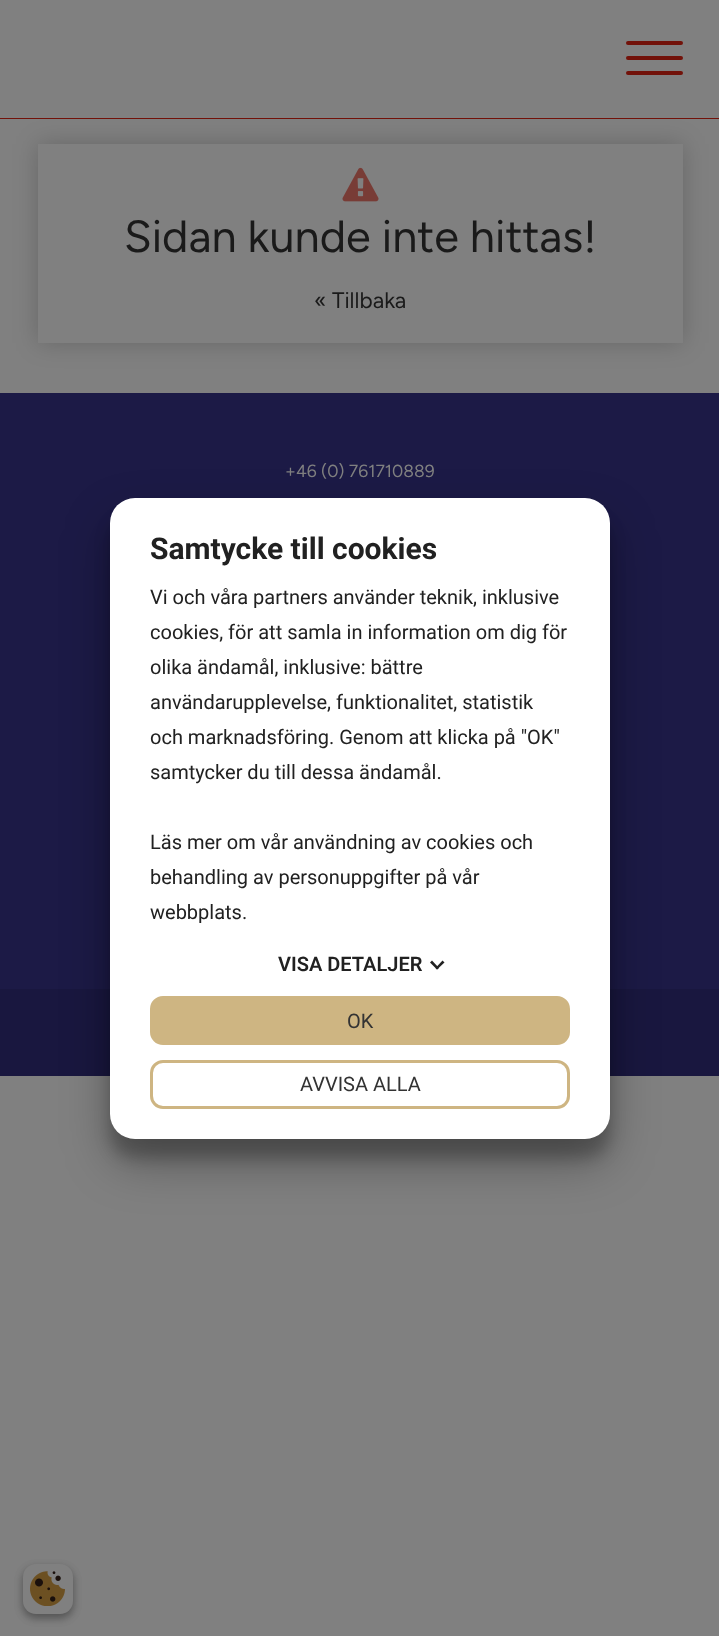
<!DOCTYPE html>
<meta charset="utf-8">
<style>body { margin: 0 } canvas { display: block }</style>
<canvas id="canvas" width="719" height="1636"></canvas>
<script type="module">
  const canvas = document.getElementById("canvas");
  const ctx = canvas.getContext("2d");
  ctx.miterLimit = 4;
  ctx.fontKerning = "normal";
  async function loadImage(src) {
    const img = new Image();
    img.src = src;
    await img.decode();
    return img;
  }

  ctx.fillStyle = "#808080";
  ctx.fillRect(0, 0, 719, 1636);
  ctx.fillStyle = "rgba(0, 0, 0, 0.2)";
  ctx.filter = "blur(12.5px)";
  ctx.beginPath();
  ctx.rect(38, 144, 645, 199);
  ctx.fill();
  ctx.filter = "none";
  ctx.fillStyle = "#72120a";
  ctx.fillRect(0, 118, 719, 1);
  ctx.beginPath();
  ctx.roundRect(626, 56, 57, 4, 2);
  ctx.fill();
  ctx.beginPath();
  ctx.roundRect(626, 41, 57, 4, 2);
  ctx.fill();
  ctx.beginPath();
  ctx.roundRect(626, 71, 57, 4, 2);
  ctx.fill();
  ctx.fillStyle = "#808080";
  ctx.fillRect(38, 144, 645, 199);
  ctx.drawImage(await loadImage("img1.png"), 342, 167, 37, 35);
  ctx.font = "45px Figtree";
  ctx.fillStyle = "#1a1a1a";
  ctx.fillText("Sidan kunde inte hittas!", 124, 252);
  ctx.font = "22.5px Figtree";
  ctx.fillText("« Tillbaka", 314, 308);
  ctx.fillStyle = "#1c1a46";
  ctx.fillRect(0, 393, 719, 596);
  ctx.font = "17.5px Figtree";
  ctx.fillStyle = "#808080";
  ctx.fillText("+46 (0) 761710889", 285, 477);
  ctx.fillStyle = "#19173f";
  ctx.fillRect(0, 989, 719, 87);
  ctx.fillStyle = "rgba(0, 0, 0, 0.22)";
  ctx.filter = "blur(7.5px)";
  ctx.beginPath();
  ctx.roundRect(110, 516, 500, 642, 25);
  ctx.fill();
  ctx.filter = "none";
  ctx.fillStyle = "rgba(0, 0, 0, 0.3)";
  ctx.filter = "blur(24px)";
  ctx.beginPath();
  ctx.roundRect(110, 521, 500, 642, 25);
  ctx.fill();
  ctx.filter = "none";
  ctx.fillStyle = "#ffffff";
  ctx.beginPath();
  ctx.roundRect(110, 498, 500, 641, 25);
  ctx.fill();
  ctx.font = "bold 30px Roboto";
  ctx.fillStyle = "#212121";
  ctx.fillText("Samtycke till cookies", 150, 559);
  ctx.font = "20px Roboto";
  ctx.fillText("Vi och våra partners använder teknik, inklusive", 150, 604);
  ctx.fillText("cookies, för att samla in information om dig för", 150, 639);
  ctx.fillText("olika ändamål, inklusive: bättre", 150, 674);
  ctx.fillText("användarupplevelse, funktionalitet, statistik", 150, 709);
  ctx.fillText("och marknadsföring. Genom att klicka på \"OK\"", 150, 744);
  ctx.fillText("samtycker du till dessa ändamål.", 150, 779);
  ctx.fillText("Läs mer om vår användning av cookies och", 150, 849);
  ctx.fillText("behandling av personuppgifter på vår", 150, 884);
  ctx.fillText("webbplats.", 150, 919);
  ctx.font = "600 20px Roboto";
  ctx.fillText("VISA DETALJER", 278, 971);
  ctx.beginPath();
  ctx.moveTo(442.5, 960.5);
  ctx.lineTo(444.5, 962.5);
  ctx.lineTo(437, 969.5);
  ctx.lineTo(435.5, 968);
  ctx.closePath();
  ctx.fill();
  ctx.beginPath();
  ctx.moveTo(432, 960.5);
  ctx.lineTo(439, 968);
  ctx.lineTo(437, 969.5);
  ctx.lineTo(430, 962.5);
  ctx.closePath();
  ctx.fill();
  ctx.fillStyle = "#ceb582";
  ctx.beginPath();
  ctx.roundRect(151.5, 997.5, 417, 46, 11.5);
  ctx.fill();
  ctx.strokeStyle = "#ceb582";
  ctx.lineWidth = 3;
  ctx.stroke();
  ctx.font = "20px Roboto";
  ctx.fillStyle = "#333333";
  ctx.fillText("OK", 347, 1028);
  ctx.beginPath();
  ctx.roundRect(151.5, 1061.5, 417, 46, 11.5);
  ctx.stroke();
  ctx.fillText("AVVISA ALLA", 300, 1091);
  ctx.fillStyle = "rgba(0, 0, 0, 0.23)";
  ctx.filter = "blur(4px)";
  ctx.beginPath();
  ctx.roundRect(23, 1568, 50, 50, 13);
  ctx.fill();
  ctx.filter = "none";
  ctx.fillStyle = "rgba(0, 0, 0, 0.16)";
  ctx.filter = "blur(4px)";
  ctx.beginPath();
  ctx.roundRect(23, 1568, 50, 50, 13);
  ctx.fill();
  ctx.filter = "none";
  ctx.fillStyle = "#808080";
  ctx.beginPath();
  ctx.roundRect(23, 1564, 50, 50, 13);
  ctx.fill();
  ctx.drawImage(await loadImage("img2.png"), 30, 1571, 35, 35);
</script>
